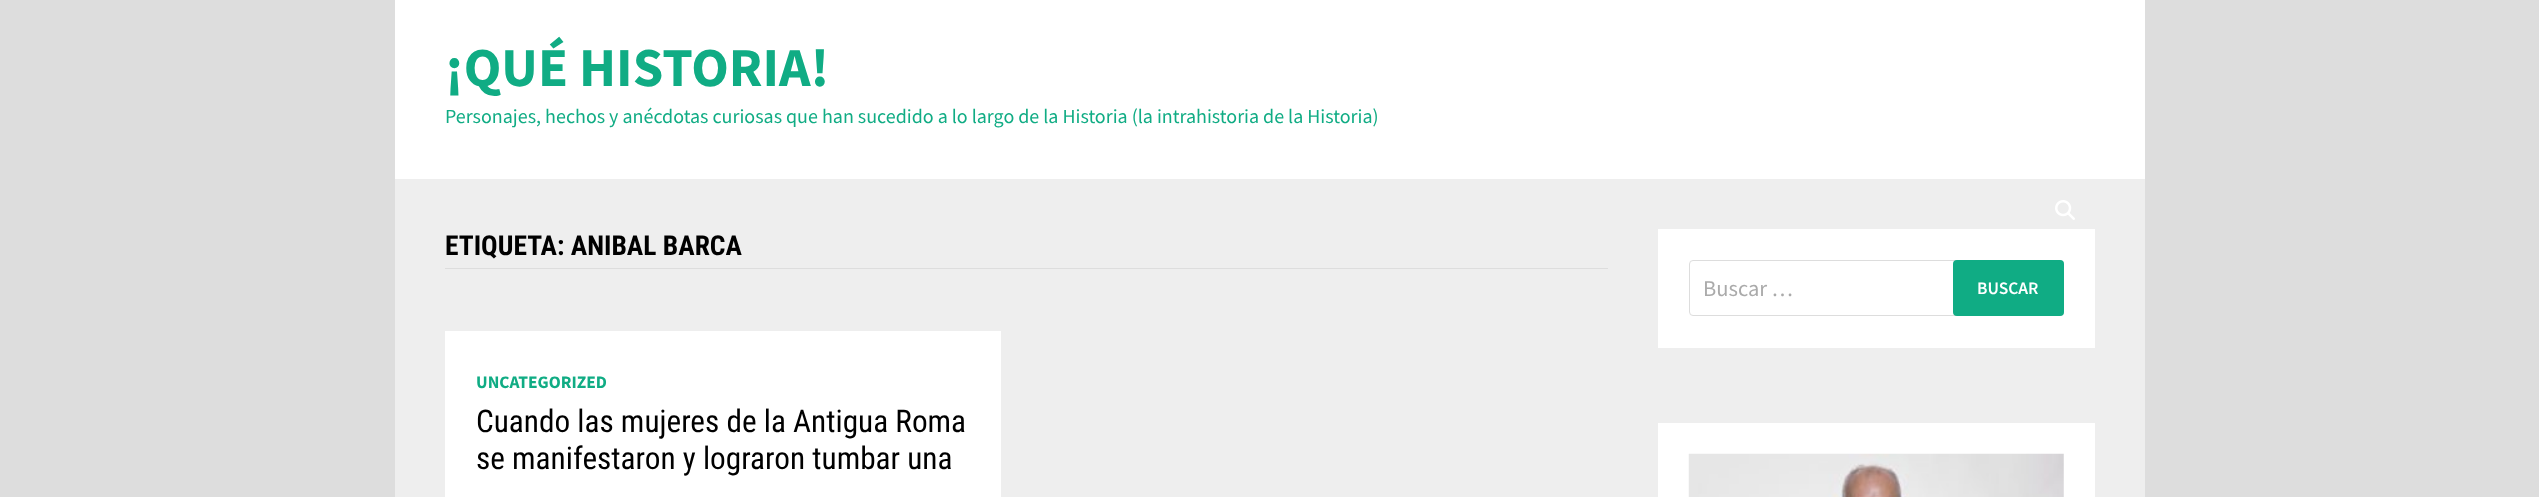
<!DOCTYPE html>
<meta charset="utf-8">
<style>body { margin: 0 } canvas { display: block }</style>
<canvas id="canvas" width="2539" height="497"></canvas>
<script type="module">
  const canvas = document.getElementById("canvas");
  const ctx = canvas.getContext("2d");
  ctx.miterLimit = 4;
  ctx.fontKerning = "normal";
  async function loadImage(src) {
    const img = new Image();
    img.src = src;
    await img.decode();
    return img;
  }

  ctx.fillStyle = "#dddddd";
  ctx.fillRect(0, 0, 2539, 497);
  ctx.fillStyle = "#ffffff";
  ctx.fillRect(395, 0, 1750, 179);
  ctx.font = "bold 55px Source Sans Pro";
  ctx.fillStyle = "#10ac84";
  ctx.fillText("¡QUÉ HISTORIA!", 445, 86);
  ctx.font = "20px Source Sans Pro";
  ctx.fillText("Personajes, hechos y anécdotas curiosas que han sucedido a lo largo de la Historia (la intrahistoria de la Historia)", 445, 123);
  ctx.fillStyle = "#eeeeee";
  ctx.fillRect(395, 179, 1750, 318);
  ctx.drawImage(await loadImage("img1.png"), 2055, 200, 20, 20);
  ctx.fillStyle = "#dddddd";
  ctx.fillRect(445, 268, 1163, 1);
  ctx.font = "bold 27.5px Roboto Condensed";
  ctx.fillStyle = "#000000";
  ctx.fillText("ETIQUETA: ANIBAL BARCA", 445, 255);
  ctx.fillStyle = "#ffffff";
  ctx.fillRect(445, 331, 556, 166);
  ctx.font = "bold 17.5px Source Sans Pro";
  ctx.fillStyle = "#10ac84";
  ctx.fillText("UNCATEGORIZED", 476, 388);
  ctx.font = "31.25px Roboto Condensed";
  ctx.fillStyle = "#000000";
  ctx.fillText("Cuando las mujeres de la Antigua Roma", 476, 432);
  ctx.fillText("se manifestaron y lograron tumbar una", 476, 469);
  ctx.fillStyle = "#ffffff";
  ctx.fillRect(1658, 229, 437, 119);
  ctx.beginPath();
  ctx.roundRect(1689.5, 260.5, 374, 55, 3.5);
  ctx.strokeStyle = "#dddddd";
  ctx.stroke();
  ctx.font = "22.5px Source Sans Pro";
  ctx.fillStyle = "#aaaaaa";
  ctx.fillText("Buscar …", 1703, 296);
  ctx.fillStyle = "#10ac84";
  ctx.beginPath();
  ctx.roundRect(1953, 260, 111, 56, 4);
  ctx.fill();
  ctx.font = "600 17.5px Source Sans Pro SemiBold";
  ctx.fillStyle = "#ffffff";
  ctx.fillText("BUSCAR", 1977, 294);
  ctx.fillRect(1658, 423, 437, 74);
  ctx.drawImage(await loadImage("img2.png"), 1688, 453, 376, 44);
</script>
